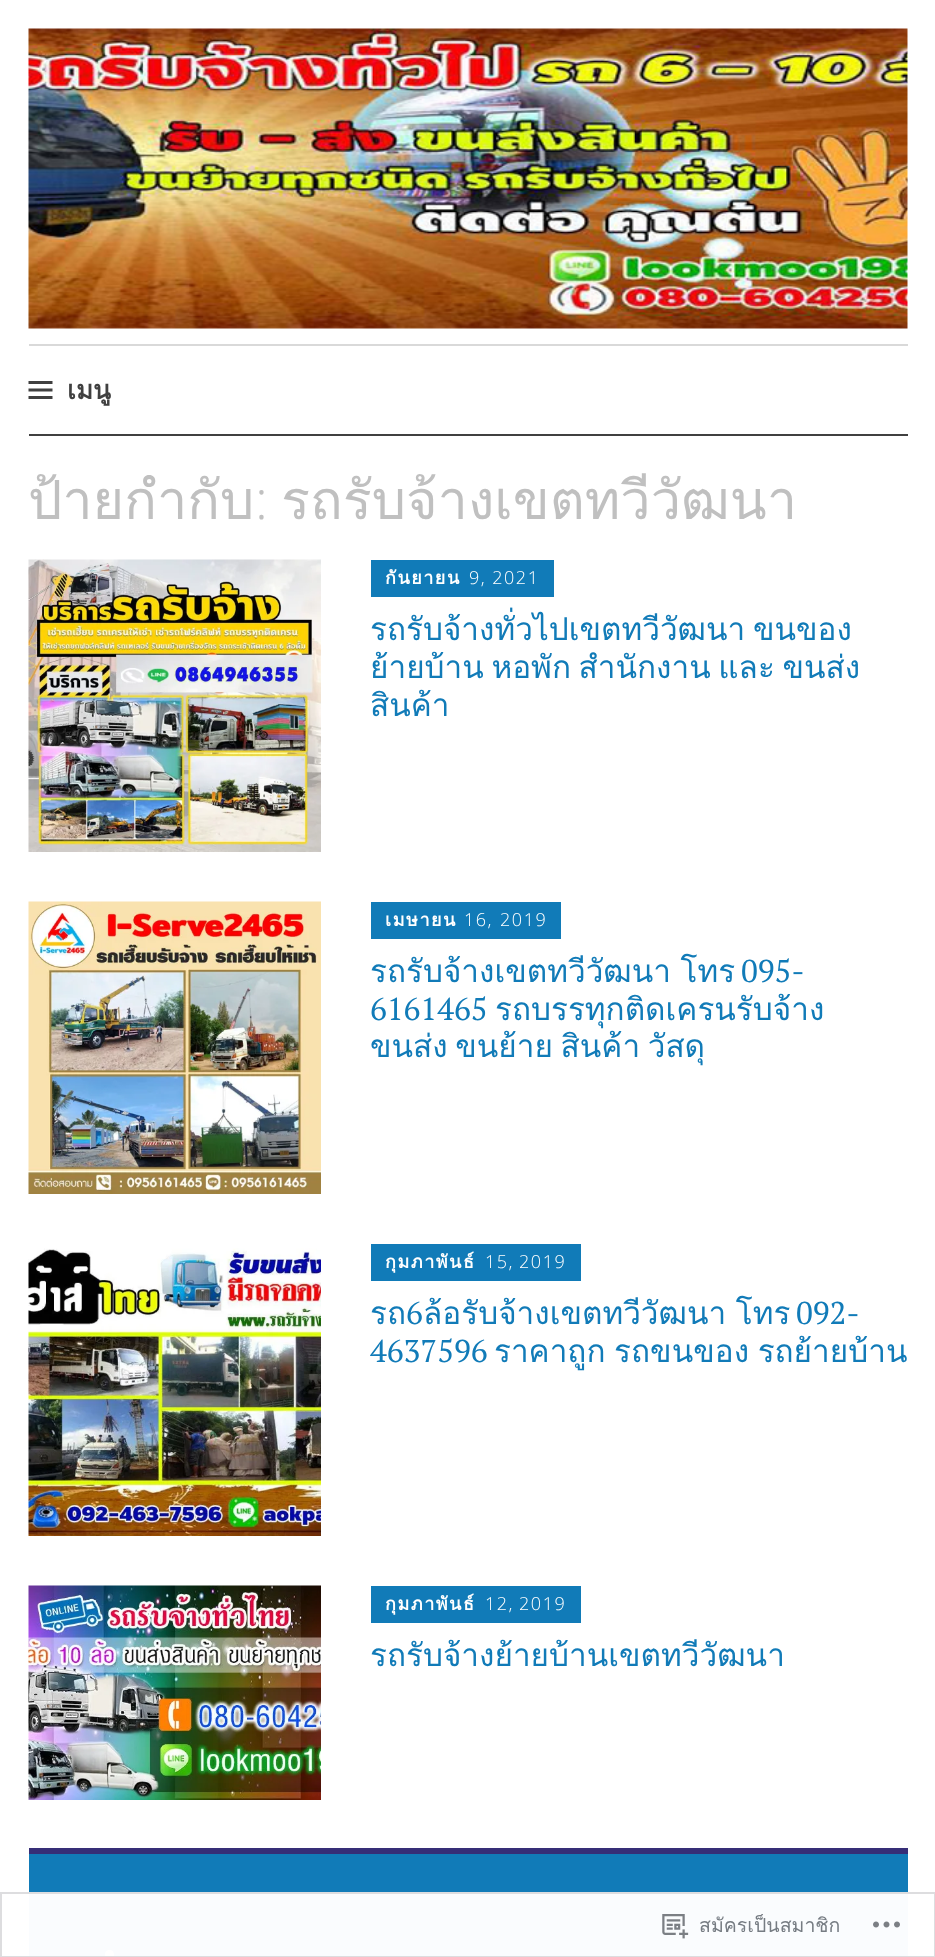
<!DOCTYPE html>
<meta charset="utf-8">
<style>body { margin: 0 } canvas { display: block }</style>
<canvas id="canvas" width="935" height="1957"></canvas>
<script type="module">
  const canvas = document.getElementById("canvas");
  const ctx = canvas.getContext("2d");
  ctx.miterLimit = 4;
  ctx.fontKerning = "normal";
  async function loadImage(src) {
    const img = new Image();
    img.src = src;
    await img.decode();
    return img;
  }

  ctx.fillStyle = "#ffffff";
  ctx.fillRect(0, 0, 935, 1957);
  ctx.drawImage(await loadImage("img1.png"), 28, 28, 880, 301);
  ctx.fillStyle = "#d9d9d9";
  ctx.fillRect(29, 344, 879, 2);
  ctx.fillStyle = "#404040";
  ctx.fillRect(29, 434, 879, 2);
  ctx.drawImage(await loadImage("img2.png"), 28, 381, 25, 18);
  ctx.font = "bold 26px Loma";
  ctx.fillText("เมนู", 67, 399);
  ctx.font = "54px Loma";
  ctx.fillStyle = "#c0c0c0";
  ctx.fillText("ป้ายกำกับ", 28, 519);
  ctx.font = "300 54px Open Sans";
  ctx.fillText(":", 255, 519);
  ctx.font = "54px Loma";
  ctx.fillText("รถรับจ้างเขตทวีวัฒนา", 281, 519);
  ctx.drawImage(await loadImage("img3.png"), 28, 559, 293, 293);
  ctx.fillStyle = "#117bb8";
  ctx.fillRect(371, 560, 183, 37);
  ctx.letterSpacing = "1.5px";
  ctx.font = "bold 18px Loma";
  ctx.fillStyle = "#ffffff";
  ctx.fillText("กันยายน", 385, 584);
  ctx.font = "300 18px Open Sans";
  ctx.fillText("9, 2021", 469, 584);
  ctx.letterSpacing = "0px";
  ctx.wordSpacing = "-3px";
  ctx.font = "31.5px Loma";
  ctx.fillStyle = "#117bb8";
  ctx.fillText("รถรับจ้างทั่วไปเขตทวีวัฒนา ขนของ", 370, 640);
  ctx.fillText("ย้ายบ้าน หอพัก สำนักงาน และ ขนส่ง", 370, 678);
  ctx.wordSpacing = "0px";
  ctx.fillText("สินค้า", 370, 716);
  ctx.drawImage(await loadImage("img4.png"), 28, 901, 293, 293);
  ctx.fillRect(371, 902, 190, 37);
  ctx.letterSpacing = "1.5px";
  ctx.font = "bold 18px Loma";
  ctx.fillStyle = "#ffffff";
  ctx.fillText("เมษายน", 385, 926);
  ctx.wordSpacing = "1px";
  ctx.font = "300 18px Open Sans";
  ctx.fillText("16, 2019", 464, 926);
  ctx.letterSpacing = "0px";
  ctx.wordSpacing = "-1px";
  ctx.font = "31.5px Loma";
  ctx.fillStyle = "#117bb8";
  ctx.fillText("รถรับจ้างเขตทวีวัฒนา โทร", 370, 982);
  ctx.wordSpacing = "0px";
  ctx.font = "31.5px PT Serif";
  ctx.fillText("095-", 741, 982);
  ctx.fillText("6161465", 370, 1020);
  ctx.font = "31.5px Loma";
  ctx.fillText("รถบรรทุกติดเครนรับจ้าง", 495, 1020);
  ctx.wordSpacing = "-3px";
  ctx.fillText("ขนส่ง ขนย้าย สินค้า วัสดุ", 370, 1057);
  ctx.drawImage(await loadImage("img5.png"), 28, 1248, 293, 288);
  ctx.fillRect(371, 1244, 210, 37);
  ctx.letterSpacing = "1.5px";
  ctx.wordSpacing = "0px";
  ctx.font = "bold 18px Loma";
  ctx.fillStyle = "#ffffff";
  ctx.fillText("กุมภาพันธ์", 385, 1268);
  ctx.wordSpacing = "-1px";
  ctx.font = "300 18px Open Sans";
  ctx.fillText("15, 2019", 485, 1268);
  ctx.letterSpacing = "0px";
  ctx.wordSpacing = "0px";
  ctx.font = "31.5px PT Serif";
  ctx.fillStyle = "#117bb8";
  ctx.fillText("6", 406, 1324);
  ctx.wordSpacing = "-1px";
  ctx.font = "31.5px Loma";
  ctx.fillText("ล้อรับจ้างเขตทวีวัฒนา โทร", 423, 1324);
  ctx.wordSpacing = "0px";
  ctx.fillText("รถ", 370, 1324);
  ctx.font = "31.5px PT Serif";
  ctx.fillText("092-", 796, 1324);
  ctx.fillText("4637596", 370, 1362);
  ctx.wordSpacing = "-2px";
  ctx.font = "31.5px Loma";
  ctx.fillText("ราคาถูก รถขนของ รถย้ายบ้าน", 494, 1362);
  ctx.drawImage(await loadImage("img6.png"), 28, 1585, 293, 215);
  ctx.fillRect(371, 1586, 210, 37);
  ctx.letterSpacing = "1.5px";
  ctx.wordSpacing = "0px";
  ctx.font = "bold 18px Loma";
  ctx.fillStyle = "#ffffff";
  ctx.fillText("กุมภาพันธ์", 385, 1610);
  ctx.wordSpacing = "-1px";
  ctx.font = "300 18px Open Sans";
  ctx.fillText("12, 2019", 485, 1610);
  ctx.letterSpacing = "0px";
  ctx.wordSpacing = "0px";
  ctx.font = "31.5px Loma";
  ctx.fillStyle = "#117bb8";
  ctx.fillText("รถรับจ้างย้ายบ้านเขตทวีวัฒนา", 370, 1666);
  ctx.fillRect(29, 1854, 879, 38);
  ctx.fillStyle = "#fafcfe";
  ctx.fillRect(29, 1892, 879, 65);
  ctx.fillStyle = "#362e77";
  ctx.fillRect(29, 1848, 879, 6);
  ctx.fillStyle = "#ffffff";
  ctx.beginPath();
  ctx.arc(109.5, 1954.5, 4.5, 0, Math.PI * 2);
  ctx.fill();
  ctx.strokeStyle = "rgba(220, 220, 222, 0.98)";
  ctx.lineWidth = 2;
  ctx.strokeRect(1, 1893, 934, 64);
  ctx.drawImage(await loadImage("img7.png"), 662, 1914, 27, 25);
  ctx.font = "19.5px Loma";
  ctx.fillStyle = "#767c83";
  ctx.fillText("สมัครเป็นสมาชิก", 699, 1932);
  ctx.drawImage(await loadImage("img8.png"), 873, 1921, 27, 7);
</script>
